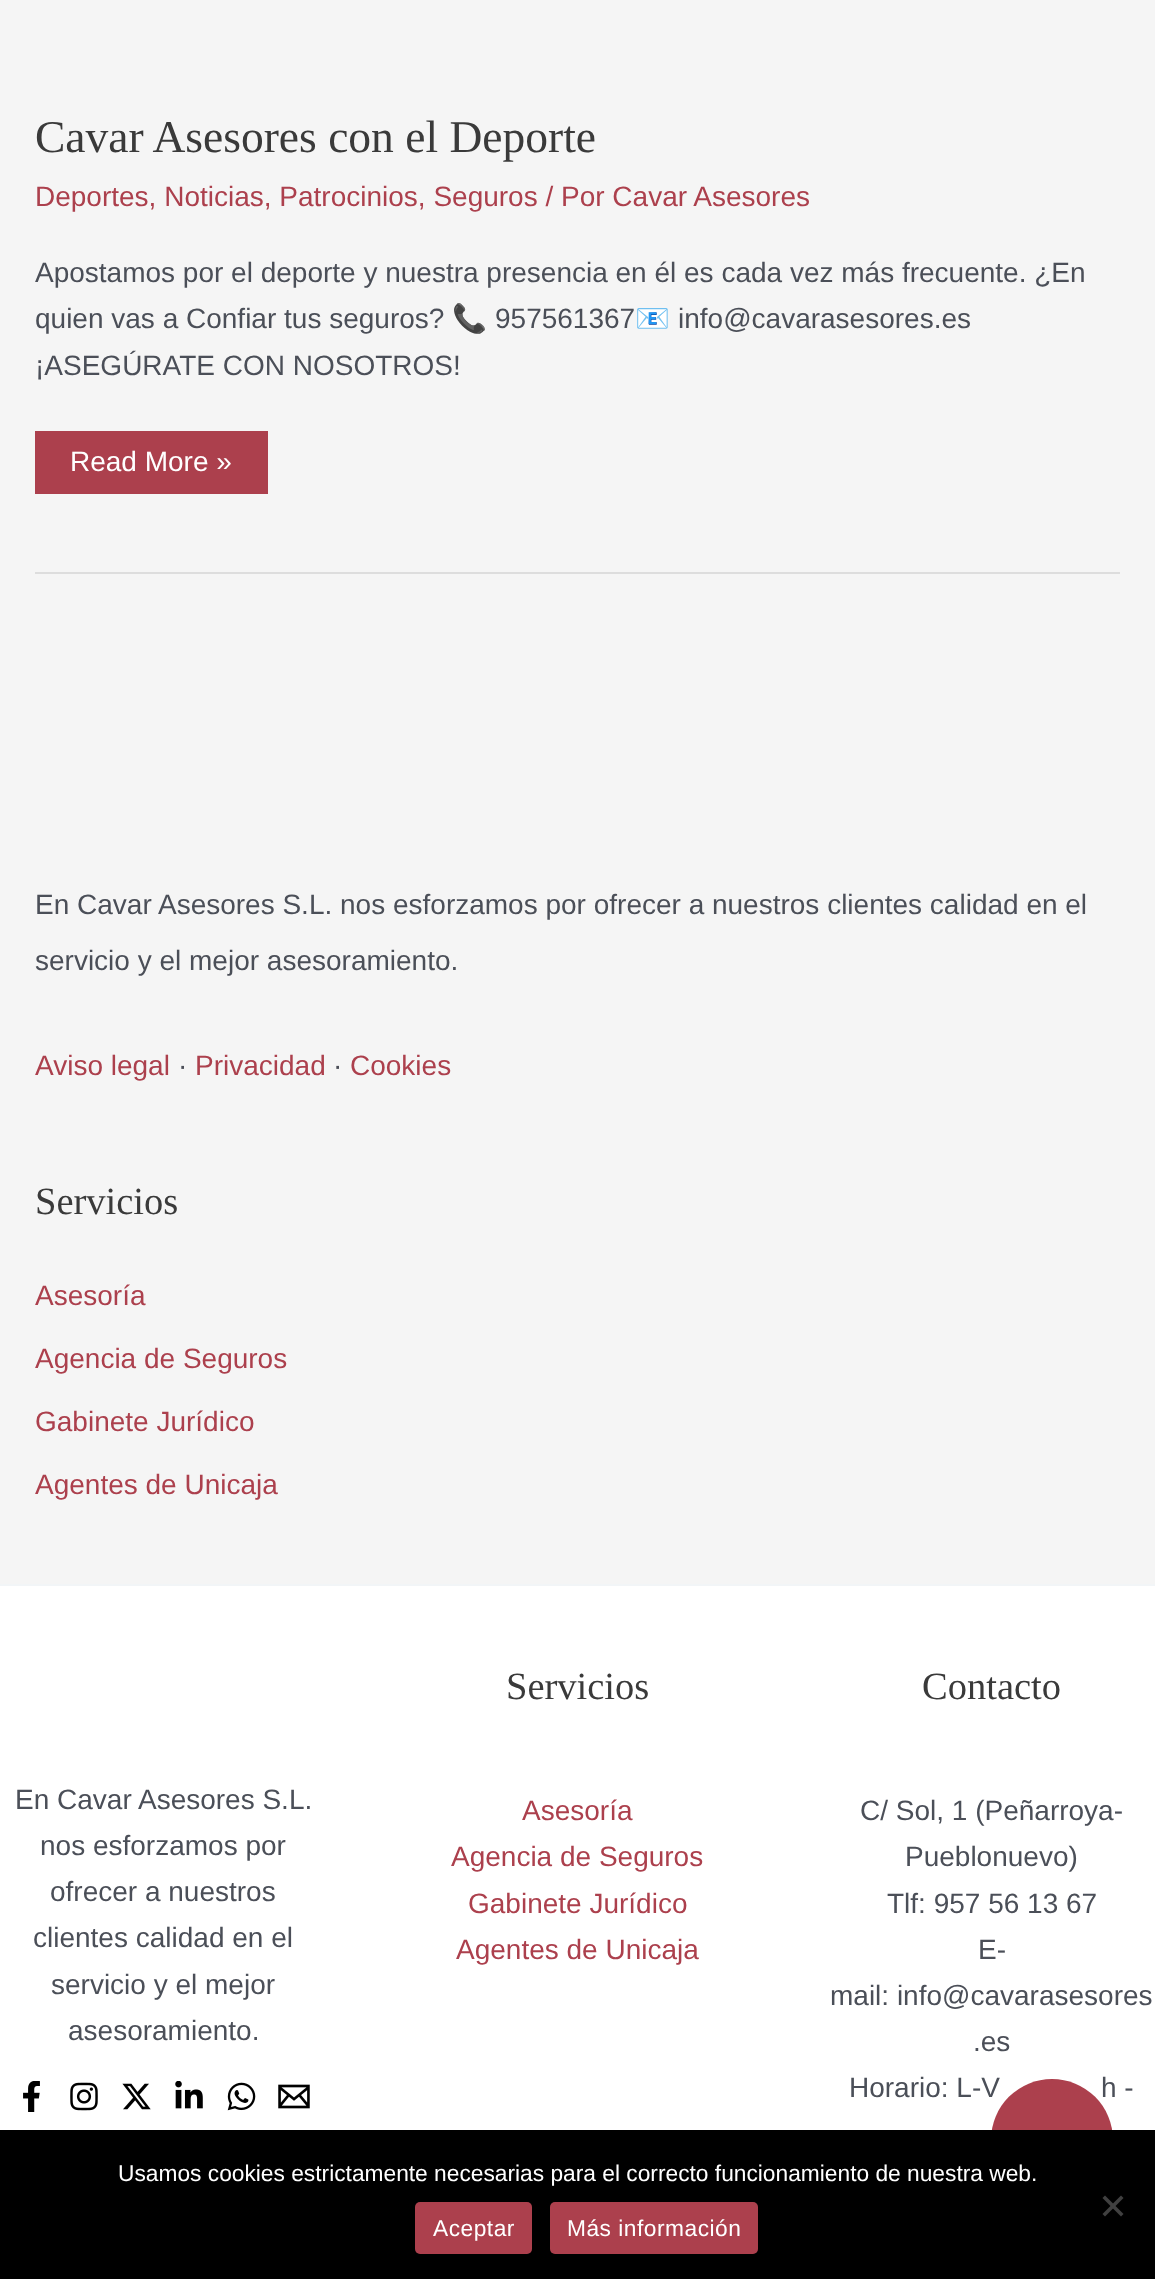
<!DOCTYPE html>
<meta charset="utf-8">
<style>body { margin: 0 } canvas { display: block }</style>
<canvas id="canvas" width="1155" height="2279"></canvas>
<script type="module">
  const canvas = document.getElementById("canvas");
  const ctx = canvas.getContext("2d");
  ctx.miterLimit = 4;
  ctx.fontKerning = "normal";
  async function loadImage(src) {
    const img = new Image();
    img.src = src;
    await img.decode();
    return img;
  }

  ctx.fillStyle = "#f5f5f5";
  ctx.fillRect(0, 0, 1155, 2279);
  ctx.fillStyle = "#dddddd";
  ctx.fillRect(35, 572, 1085, 2);
  ctx.font = "45.5px Liberation Serif";
  ctx.fillStyle = "#3a3a3a";
  ctx.fillText("Cavar Asesores con el Deporte", 35, 152);
  ctx.font = "28px Liberation Sans";
  ctx.fillStyle = "#ac404d";
  ctx.fillText("Deportes, Noticias, Patrocinios, Seguros / Por Cavar Asesores", 35, 206);
  ctx.fillStyle = "#4b4f58";
  ctx.fillText("Apostamos por el deporte y nuestra presencia en él es cada vez más frecuente. ¿En", 35, 282);
  ctx.fillText("quien vas a Confiar tus seguros?", 35, 328);
  ctx.font = "28px Noto Color Emoji";
  ctx.fillText("📞", 452, 328);
  ctx.font = "28px Liberation Sans";
  ctx.fillText("957561367", 495, 328);
  ctx.font = "28px Noto Color Emoji";
  ctx.fillText("📧", 635, 328);
  ctx.font = "28px Liberation Sans";
  ctx.fillText("info@cavarasesores.es", 678, 328);
  ctx.fillText("¡ASEGÚRATE CON NOSOTROS!", 35, 375);
  ctx.fillStyle = "#ac404d";
  ctx.fillRect(35, 431, 233, 63);
  ctx.fillStyle = "#ffffff";
  ctx.fillText("Read More »", 70, 471);
  ctx.fillStyle = "#4b4f58";
  ctx.fillText("En Cavar Asesores S.L. nos esforzamos por ofrecer a nuestros clientes calidad en el", 35, 914);
  ctx.fillText("servicio y el mejor asesoramiento.", 35, 970);
  ctx.fillStyle = "#ac404d";
  ctx.fillText("Aviso legal", 35, 1075);
  ctx.fillStyle = "#4b4f58";
  ctx.fillText("·", 178, 1075);
  ctx.fillStyle = "#ac404d";
  ctx.fillText("Privacidad", 195, 1075);
  ctx.fillStyle = "#4b4f58";
  ctx.fillText("·", 333, 1075);
  ctx.fillStyle = "#ac404d";
  ctx.fillText("Cookies", 350, 1075);
  ctx.font = "38.5px Liberation Serif";
  ctx.fillStyle = "#3a3a3a";
  ctx.fillText("Servicios", 35, 1214);
  ctx.font = "28px Liberation Sans";
  ctx.fillStyle = "#ac404d";
  ctx.fillText("Asesoría", 35, 1305);
  ctx.fillText("Agencia de Seguros", 35, 1368);
  ctx.fillText("Gabinete Jurídico", 35, 1431);
  ctx.fillText("Agentes de Unicaja", 35, 1494);
  ctx.fillStyle = "#ffffff";
  ctx.fillRect(0, 1586, 1155, 544);
  ctx.fillStyle = "#f2f5f7";
  ctx.fillRect(0, 1584, 1155, 2);
  ctx.fillStyle = "#4b4f58";
  ctx.fillText("En Cavar Asesores S.L.", 15, 1809);
  ctx.fillText("nos esforzamos por", 40, 1855);
  ctx.fillText("ofrecer a nuestros", 50, 1901);
  ctx.fillText("clientes calidad en el", 33, 1947);
  ctx.fillText("servicio y el mejor", 51, 1994);
  ctx.fillText("asesoramiento.", 68, 2040);
  ctx.drawImage(await loadImage("img1.png"), 23, 2081, 17, 31);
  ctx.drawImage(await loadImage("img2.png"), 70, 2082, 28, 29);
  ctx.drawImage(await loadImage("img3.png"), 122, 2083, 29, 27);
  ctx.drawImage(await loadImage("img4.png"), 175, 2081, 28, 28);
  ctx.drawImage(await loadImage("img5.png"), 227, 2082, 29, 29);
  ctx.drawImage(await loadImage("img6.png"), 278, 2084, 32, 25);
  ctx.font = "38.5px Liberation Serif";
  ctx.fillStyle = "#3a3a3a";
  ctx.fillText("Servicios", 506, 1699);
  ctx.font = "28px Liberation Sans";
  ctx.fillStyle = "#ac404d";
  ctx.fillText("Asesoría", 522, 1820);
  ctx.fillText("Agencia de Seguros", 451, 1866);
  ctx.fillText("Gabinete Jurídico", 468, 1913);
  ctx.fillText("Agentes de Unicaja", 456, 1959);
  ctx.font = "38.5px Liberation Serif";
  ctx.fillStyle = "#3a3a3a";
  ctx.fillText("Contacto", 922, 1699);
  ctx.font = "28px Liberation Sans";
  ctx.fillStyle = "#4b4f58";
  ctx.fillText("C/ Sol, 1 (Peñarroya-", 860, 1820);
  ctx.fillText("Pueblonuevo)", 905, 1866);
  ctx.fillText("Tlf: 957 56 13 67", 887, 1913);
  ctx.fillText("E-", 978, 1959);
  ctx.fillText("mail: info@cavarasesores", 830, 2005);
  ctx.fillText(".es", 973, 2051);
  ctx.fillText("Horario: L-V", 849, 2097);
  ctx.fillText("h -", 1101, 2097);
  ctx.fillStyle = "#ac404d";
  ctx.beginPath();
  ctx.roundRect(991, 2079, 122, 123, 61);
  ctx.fill();
  ctx.fillStyle = "#000000";
  ctx.fillRect(0, 2130, 1155, 149);
  ctx.font = "22.75px Liberation Sans";
  ctx.fillStyle = "#ffffff";
  ctx.fillText("Usamos cookies estrictamente necesarias para el correcto funcionamiento de nuestra web.", 118, 2181);
  ctx.fillStyle = "#404040";
  ctx.beginPath();
  ctx.moveTo(1121, 2195.5);
  ctx.lineTo(1123.5, 2198);
  ctx.lineTo(1105, 2216.5);
  ctx.lineTo(1102.5, 2214);
  ctx.closePath();
  ctx.fill();
  ctx.beginPath();
  ctx.moveTo(1102.5, 2198);
  ctx.lineTo(1105, 2195.5);
  ctx.lineTo(1123.5, 2214);
  ctx.lineTo(1121, 2216.5);
  ctx.closePath();
  ctx.fill();
  ctx.fillStyle = "#ac404d";
  ctx.beginPath();
  ctx.roundRect(415, 2202, 117, 52, 5);
  ctx.fill();
  ctx.letterSpacing = "0.5px";
  ctx.fillStyle = "#ffffff";
  ctx.fillText("Aceptar", 433, 2236);
  ctx.fillStyle = "#ac404d";
  ctx.beginPath();
  ctx.roundRect(550, 2202, 208, 52, 5);
  ctx.fill();
  ctx.fillStyle = "#ffffff";
  ctx.fillText("Más información", 567, 2236);
</script>
